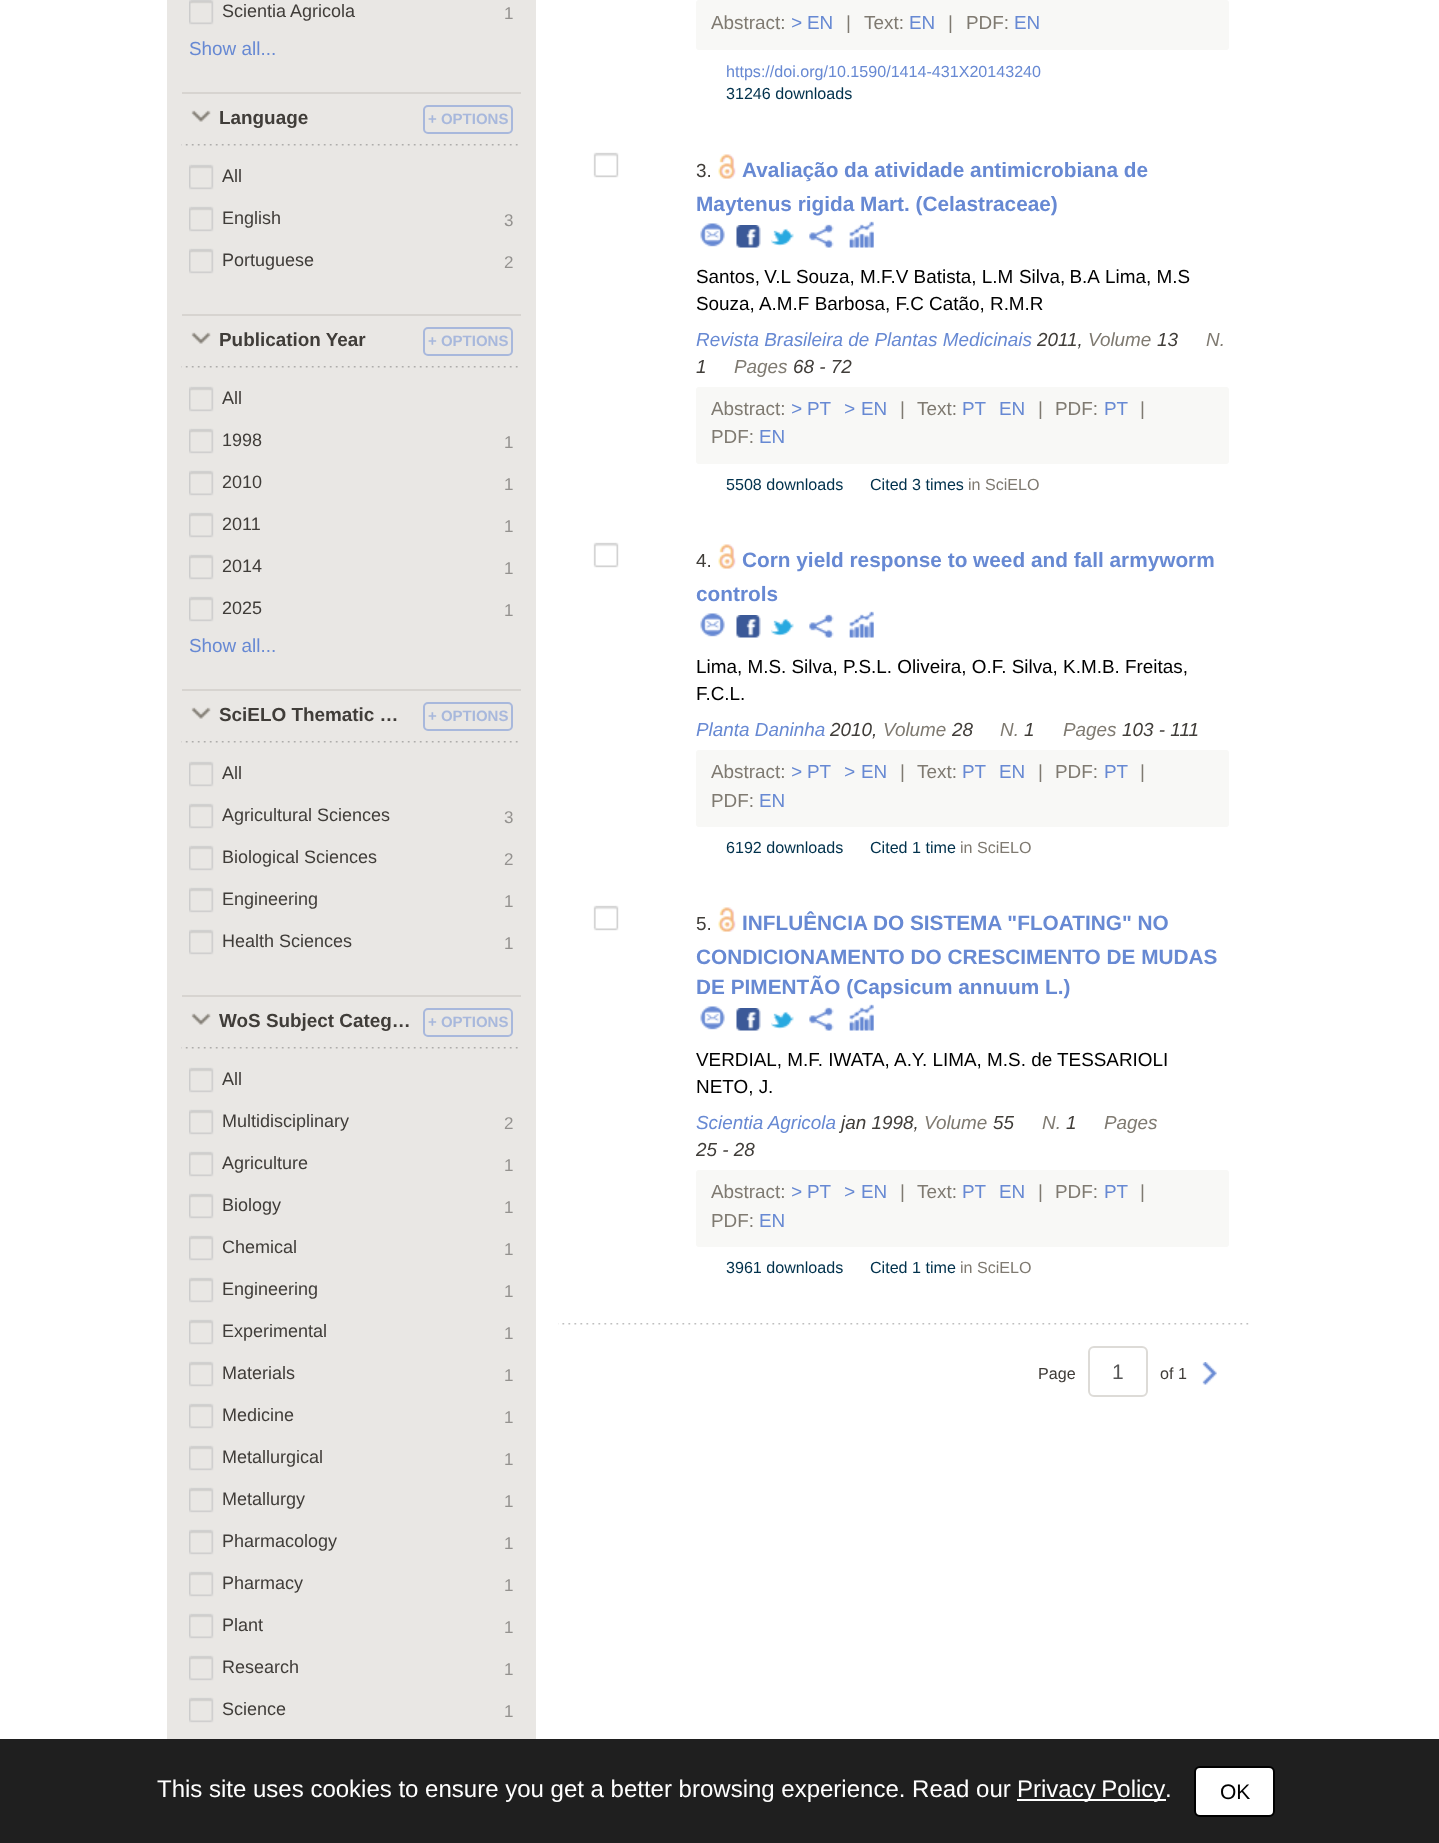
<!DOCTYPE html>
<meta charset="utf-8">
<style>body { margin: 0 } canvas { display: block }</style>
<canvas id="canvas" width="1439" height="1843"></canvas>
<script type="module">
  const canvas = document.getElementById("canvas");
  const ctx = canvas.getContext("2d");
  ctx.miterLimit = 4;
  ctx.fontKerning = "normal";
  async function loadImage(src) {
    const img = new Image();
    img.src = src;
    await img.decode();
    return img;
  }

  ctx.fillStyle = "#ffffff";
  ctx.fillRect(0, 0, 1439, 1843);
  ctx.fillStyle = "#e9e7e4";
  ctx.fillRect(167, 0, 369, 1739);
  ctx.fillStyle = "#d7d4d0";
  ctx.fillRect(182, 92, 339, 2);
  ctx.drawImage(await loadImage("img1.png"), 189, 0, 25, 25);
  ctx.font = "18px Liberation Sans";
  ctx.fillStyle = "#403d39";
  ctx.fillText("Scientia Agricola", 222, 17);
  ctx.font = "17px Liberation Sans";
  ctx.fillStyle = "#94928f";
  ctx.fillText("1", 504, 19);
  ctx.font = "18.9px Liberation Sans";
  ctx.fillStyle = "#6789d3";
  ctx.fillText("Show all...", 189, 55);
  ctx.drawImage(await loadImage("img2.png"), 181, 144, 337, 2);
  ctx.drawImage(await loadImage("img3.png"), 191, 110, 20, 12);
  ctx.font = "bold 18.9px Liberation Sans";
  ctx.fillStyle = "#403d39";
  ctx.fillText("Language", 219, 124);
  ctx.beginPath();
  ctx.roundRect(424, 106, 88, 27, 4);
  ctx.strokeStyle = "#a8b8dc";
  ctx.lineWidth = 2;
  ctx.stroke();
  ctx.font = "bold 15px Liberation Sans";
  ctx.fillStyle = "#a8b8dc";
  ctx.fillText("+ OPTIONS", 428, 124);
  ctx.fillStyle = "#d7d4d0";
  ctx.fillRect(182, 314, 339, 2);
  ctx.drawImage(await loadImage("img4.png"), 189, 164, 25, 26);
  ctx.font = "18px Liberation Sans";
  ctx.fillStyle = "#403d39";
  ctx.fillText("All", 222, 182);
  ctx.drawImage(await loadImage("img4.png"), 189, 206, 25, 26);
  ctx.fillText("English", 222, 224);
  ctx.font = "17px Liberation Sans";
  ctx.fillStyle = "#94928f";
  ctx.fillText("3", 504, 226);
  ctx.drawImage(await loadImage("img4.png"), 189, 248, 25, 26);
  ctx.font = "18px Liberation Sans";
  ctx.fillStyle = "#403d39";
  ctx.fillText("Portuguese", 222, 266);
  ctx.font = "17px Liberation Sans";
  ctx.fillStyle = "#94928f";
  ctx.fillText("2", 504, 268);
  ctx.drawImage(await loadImage("img2.png"), 181, 366, 337, 2);
  ctx.drawImage(await loadImage("img3.png"), 191, 332, 20, 12);
  ctx.font = "bold 18.9px Liberation Sans";
  ctx.fillStyle = "#403d39";
  ctx.fillText("Publication Year", 219, 346);
  ctx.beginPath();
  ctx.roundRect(424, 328, 88, 27, 4);
  ctx.stroke();
  ctx.font = "bold 15px Liberation Sans";
  ctx.fillStyle = "#a8b8dc";
  ctx.fillText("+ OPTIONS", 428, 346);
  ctx.fillStyle = "#d7d4d0";
  ctx.fillRect(182, 689, 339, 2);
  ctx.drawImage(await loadImage("img4.png"), 189, 386, 25, 26);
  ctx.font = "18px Liberation Sans";
  ctx.fillStyle = "#403d39";
  ctx.fillText("All", 222, 404);
  ctx.drawImage(await loadImage("img4.png"), 189, 428, 25, 26);
  ctx.fillText("1998", 222, 446);
  ctx.font = "17px Liberation Sans";
  ctx.fillStyle = "#94928f";
  ctx.fillText("1", 504, 448);
  ctx.drawImage(await loadImage("img4.png"), 189, 470, 25, 26);
  ctx.font = "18px Liberation Sans";
  ctx.fillStyle = "#403d39";
  ctx.fillText("2010", 222, 488);
  ctx.font = "17px Liberation Sans";
  ctx.fillStyle = "#94928f";
  ctx.fillText("1", 504, 490);
  ctx.drawImage(await loadImage("img4.png"), 189, 512, 25, 26);
  ctx.font = "18px Liberation Sans";
  ctx.fillStyle = "#403d39";
  ctx.fillText("2011", 222, 530);
  ctx.font = "17px Liberation Sans";
  ctx.fillStyle = "#94928f";
  ctx.fillText("1", 504, 532);
  ctx.drawImage(await loadImage("img4.png"), 189, 554, 25, 26);
  ctx.font = "18px Liberation Sans";
  ctx.fillStyle = "#403d39";
  ctx.fillText("2014", 222, 572);
  ctx.font = "17px Liberation Sans";
  ctx.fillStyle = "#94928f";
  ctx.fillText("1", 504, 574);
  ctx.drawImage(await loadImage("img4.png"), 189, 596, 25, 26);
  ctx.font = "18px Liberation Sans";
  ctx.fillStyle = "#403d39";
  ctx.fillText("2025", 222, 614);
  ctx.font = "17px Liberation Sans";
  ctx.fillStyle = "#94928f";
  ctx.fillText("1", 504, 616);
  ctx.font = "18.9px Liberation Sans";
  ctx.fillStyle = "#6789d3";
  ctx.fillText("Show all...", 189, 652);
  ctx.drawImage(await loadImage("img2.png"), 181, 741, 337, 2);
  ctx.drawImage(await loadImage("img3.png"), 191, 707, 20, 12);
  ctx.font = "bold 18.9px Liberation Sans";
  ctx.fillStyle = "#403d39";
  ctx.fillText("SciELO Thematic …", 219, 721);
  ctx.beginPath();
  ctx.roundRect(424, 703, 88, 27, 4);
  ctx.stroke();
  ctx.font = "bold 15px Liberation Sans";
  ctx.fillStyle = "#a8b8dc";
  ctx.fillText("+ OPTIONS", 428, 721);
  ctx.fillStyle = "#d7d4d0";
  ctx.fillRect(182, 995, 339, 2);
  ctx.drawImage(await loadImage("img4.png"), 189, 761, 25, 26);
  ctx.font = "18px Liberation Sans";
  ctx.fillStyle = "#403d39";
  ctx.fillText("All", 222, 779);
  ctx.drawImage(await loadImage("img4.png"), 189, 803, 25, 26);
  ctx.fillText("Agricultural Sciences", 222, 821);
  ctx.font = "17px Liberation Sans";
  ctx.fillStyle = "#94928f";
  ctx.fillText("3", 504, 823);
  ctx.drawImage(await loadImage("img4.png"), 189, 845, 25, 26);
  ctx.font = "18px Liberation Sans";
  ctx.fillStyle = "#403d39";
  ctx.fillText("Biological Sciences", 222, 863);
  ctx.font = "17px Liberation Sans";
  ctx.fillStyle = "#94928f";
  ctx.fillText("2", 504, 865);
  ctx.drawImage(await loadImage("img4.png"), 189, 887, 25, 26);
  ctx.font = "18px Liberation Sans";
  ctx.fillStyle = "#403d39";
  ctx.fillText("Engineering", 222, 905);
  ctx.font = "17px Liberation Sans";
  ctx.fillStyle = "#94928f";
  ctx.fillText("1", 504, 907);
  ctx.drawImage(await loadImage("img4.png"), 189, 929, 25, 26);
  ctx.font = "18px Liberation Sans";
  ctx.fillStyle = "#403d39";
  ctx.fillText("Health Sciences", 222, 947);
  ctx.font = "17px Liberation Sans";
  ctx.fillStyle = "#94928f";
  ctx.fillText("1", 504, 949);
  ctx.drawImage(await loadImage("img2.png"), 181, 1047, 337, 2);
  ctx.drawImage(await loadImage("img3.png"), 191, 1013, 20, 12);
  ctx.font = "bold 18.9px Liberation Sans";
  ctx.fillStyle = "#403d39";
  ctx.fillText("WoS Subject Categ…", 219, 1027);
  ctx.beginPath();
  ctx.roundRect(424, 1009, 88, 27, 4);
  ctx.stroke();
  ctx.font = "bold 15px Liberation Sans";
  ctx.fillStyle = "#a8b8dc";
  ctx.fillText("+ OPTIONS", 428, 1027);
  ctx.drawImage(await loadImage("img4.png"), 189, 1067, 25, 26);
  ctx.font = "18px Liberation Sans";
  ctx.fillStyle = "#403d39";
  ctx.fillText("All", 222, 1085);
  ctx.drawImage(await loadImage("img4.png"), 189, 1109, 25, 26);
  ctx.fillText("Multidisciplinary", 222, 1127);
  ctx.font = "17px Liberation Sans";
  ctx.fillStyle = "#94928f";
  ctx.fillText("2", 504, 1129);
  ctx.drawImage(await loadImage("img4.png"), 189, 1151, 25, 26);
  ctx.font = "18px Liberation Sans";
  ctx.fillStyle = "#403d39";
  ctx.fillText("Agriculture", 222, 1169);
  ctx.font = "17px Liberation Sans";
  ctx.fillStyle = "#94928f";
  ctx.fillText("1", 504, 1171);
  ctx.drawImage(await loadImage("img4.png"), 189, 1193, 25, 26);
  ctx.font = "18px Liberation Sans";
  ctx.fillStyle = "#403d39";
  ctx.fillText("Biology", 222, 1211);
  ctx.font = "17px Liberation Sans";
  ctx.fillStyle = "#94928f";
  ctx.fillText("1", 504, 1213);
  ctx.drawImage(await loadImage("img4.png"), 189, 1235, 25, 26);
  ctx.font = "18px Liberation Sans";
  ctx.fillStyle = "#403d39";
  ctx.fillText("Chemical", 222, 1253);
  ctx.font = "17px Liberation Sans";
  ctx.fillStyle = "#94928f";
  ctx.fillText("1", 504, 1255);
  ctx.drawImage(await loadImage("img4.png"), 189, 1277, 25, 26);
  ctx.font = "18px Liberation Sans";
  ctx.fillStyle = "#403d39";
  ctx.fillText("Engineering", 222, 1295);
  ctx.font = "17px Liberation Sans";
  ctx.fillStyle = "#94928f";
  ctx.fillText("1", 504, 1297);
  ctx.drawImage(await loadImage("img4.png"), 189, 1319, 25, 26);
  ctx.font = "18px Liberation Sans";
  ctx.fillStyle = "#403d39";
  ctx.fillText("Experimental", 222, 1337);
  ctx.font = "17px Liberation Sans";
  ctx.fillStyle = "#94928f";
  ctx.fillText("1", 504, 1339);
  ctx.drawImage(await loadImage("img4.png"), 189, 1361, 25, 26);
  ctx.font = "18px Liberation Sans";
  ctx.fillStyle = "#403d39";
  ctx.fillText("Materials", 222, 1379);
  ctx.font = "17px Liberation Sans";
  ctx.fillStyle = "#94928f";
  ctx.fillText("1", 504, 1381);
  ctx.drawImage(await loadImage("img4.png"), 189, 1403, 25, 26);
  ctx.font = "18px Liberation Sans";
  ctx.fillStyle = "#403d39";
  ctx.fillText("Medicine", 222, 1421);
  ctx.font = "17px Liberation Sans";
  ctx.fillStyle = "#94928f";
  ctx.fillText("1", 504, 1423);
  ctx.drawImage(await loadImage("img4.png"), 189, 1445, 25, 26);
  ctx.font = "18px Liberation Sans";
  ctx.fillStyle = "#403d39";
  ctx.fillText("Metallurgical", 222, 1463);
  ctx.font = "17px Liberation Sans";
  ctx.fillStyle = "#94928f";
  ctx.fillText("1", 504, 1465);
  ctx.drawImage(await loadImage("img4.png"), 189, 1487, 25, 26);
  ctx.font = "18px Liberation Sans";
  ctx.fillStyle = "#403d39";
  ctx.fillText("Metallurgy", 222, 1505);
  ctx.font = "17px Liberation Sans";
  ctx.fillStyle = "#94928f";
  ctx.fillText("1", 504, 1507);
  ctx.drawImage(await loadImage("img4.png"), 189, 1529, 25, 26);
  ctx.font = "18px Liberation Sans";
  ctx.fillStyle = "#403d39";
  ctx.fillText("Pharmacology", 222, 1547);
  ctx.font = "17px Liberation Sans";
  ctx.fillStyle = "#94928f";
  ctx.fillText("1", 504, 1549);
  ctx.drawImage(await loadImage("img4.png"), 189, 1571, 25, 26);
  ctx.font = "18px Liberation Sans";
  ctx.fillStyle = "#403d39";
  ctx.fillText("Pharmacy", 222, 1589);
  ctx.font = "17px Liberation Sans";
  ctx.fillStyle = "#94928f";
  ctx.fillText("1", 504, 1591);
  ctx.drawImage(await loadImage("img4.png"), 189, 1613, 25, 26);
  ctx.font = "18px Liberation Sans";
  ctx.fillStyle = "#403d39";
  ctx.fillText("Plant", 222, 1631);
  ctx.font = "17px Liberation Sans";
  ctx.fillStyle = "#94928f";
  ctx.fillText("1", 504, 1633);
  ctx.drawImage(await loadImage("img4.png"), 189, 1655, 25, 26);
  ctx.font = "18px Liberation Sans";
  ctx.fillStyle = "#403d39";
  ctx.fillText("Research", 222, 1673);
  ctx.font = "17px Liberation Sans";
  ctx.fillStyle = "#94928f";
  ctx.fillText("1", 504, 1675);
  ctx.drawImage(await loadImage("img4.png"), 189, 1697, 25, 26);
  ctx.font = "18px Liberation Sans";
  ctx.fillStyle = "#403d39";
  ctx.fillText("Science", 222, 1715);
  ctx.font = "17px Liberation Sans";
  ctx.fillStyle = "#94928f";
  ctx.fillText("1", 504, 1717);
  ctx.fillStyle = "#f8f8f6";
  ctx.beginPath();
  ctx.roundRect(696, 0, 533, 50, 3);
  ctx.fill();
  ctx.font = "18.9px Liberation Sans";
  ctx.fillStyle = "#7f7a71";
  ctx.fillText("Abstract:", 711, 29);
  ctx.font = "18.9px Liberation Mono";
  ctx.fillStyle = "#6789d3";
  ctx.fillText(">", 791, 29);
  ctx.font = "18.9px Liberation Sans";
  ctx.fillText("EN", 807, 29);
  ctx.fillStyle = "#7f7a71";
  ctx.fillText("|", 846, 29);
  ctx.fillText("Text:", 864, 29);
  ctx.fillStyle = "#6789d3";
  ctx.fillText("EN", 909, 29);
  ctx.fillStyle = "#7f7a71";
  ctx.fillText("|", 948, 29);
  ctx.fillText("PDF:", 966, 29);
  ctx.fillStyle = "#6789d3";
  ctx.fillText("EN", 1014, 29);
  ctx.font = "16.1px Liberation Sans";
  ctx.fillText("https://doi.org/10.1590/1414-431X20143240", 726, 77);
  ctx.fillStyle = "#00314c";
  ctx.fillText("31246 downloads", 726, 99);
  ctx.drawImage(await loadImage("img5.png"), 593, 152, 26, 26);
  ctx.font = "18.9px Liberation Sans";
  ctx.fillStyle = "#403d39";
  ctx.fillText("3.", 696, 177);
  ctx.drawImage(await loadImage("img6.png"), 718, 154, 18, 25);
  ctx.font = "bold 20.8px Liberation Sans";
  ctx.fillStyle = "#6789d3";
  ctx.fillText("Avaliação da atividade antimicrobiana de", 742, 177);
  ctx.fillText("Maytenus rigida Mart. (Celastraceae)", 696, 211);
  ctx.drawImage(await loadImage("img7.png"), 700, 223, 25, 24);
  ctx.drawImage(await loadImage("img8.png"), 736, 225, 25, 23);
  ctx.drawImage(await loadImage("img9.png"), 771, 228, 23, 18);
  ctx.drawImage(await loadImage("img10.png"), 809, 224, 25, 24);
  ctx.drawImage(await loadImage("img11.png"), 849, 221, 25, 27);
  ctx.wordSpacing = "-1px";
  ctx.font = "18.9px Liberation Sans";
  ctx.fillStyle = "#000000";
  ctx.fillText("Santos, V.L", 696, 283);
  ctx.wordSpacing = "0px";
  ctx.fillText("Souza, M.F.V Batista, L.M", 796, 283);
  ctx.wordSpacing = "-1px";
  ctx.fillText("Silva, B.A", 1019, 283);
  ctx.wordSpacing = "0px";
  ctx.fillText("Lima, M.S", 1105, 283);
  ctx.fillText("Souza, A.M.F Barbosa, F.C Catão, R.M.R", 696, 310);
  ctx.font = "italic 18.9px Liberation Sans";
  ctx.fillStyle = "#6789d3";
  ctx.fillText("Revista Brasileira de Plantas Medicinais", 696, 346);
  ctx.fillStyle = "#403d39";
  ctx.fillText("2011,", 1037, 346);
  ctx.fillStyle = "#7f7a71";
  ctx.fillText("Volume", 1088, 346);
  ctx.fillStyle = "#403d39";
  ctx.fillText("13", 1157, 346);
  ctx.fillStyle = "#7f7a71";
  ctx.fillText("N.", 1206, 346);
  ctx.fillStyle = "#403d39";
  ctx.fillText("1", 696, 373);
  ctx.fillStyle = "#7f7a71";
  ctx.fillText("Pages", 734, 373);
  ctx.fillStyle = "#403d39";
  ctx.fillText("68 - 72", 793, 373);
  ctx.fillStyle = "#f8f8f6";
  ctx.beginPath();
  ctx.roundRect(696, 387, 533, 77, 3);
  ctx.fill();
  ctx.font = "18.9px Liberation Sans";
  ctx.fillStyle = "#7f7a71";
  ctx.fillText("Abstract:", 711, 415);
  ctx.font = "18.9px Liberation Mono";
  ctx.fillStyle = "#6789d3";
  ctx.fillText(">", 791, 415);
  ctx.font = "18.9px Liberation Sans";
  ctx.fillText("PT", 807, 415);
  ctx.font = "18.9px Liberation Mono";
  ctx.fillText(">", 844, 415);
  ctx.font = "18.9px Liberation Sans";
  ctx.fillText("EN", 861, 415);
  ctx.fillStyle = "#7f7a71";
  ctx.fillText("|", 900, 415);
  ctx.fillText("Text:", 917, 415);
  ctx.fillStyle = "#6789d3";
  ctx.fillText("PT", 962, 415);
  ctx.fillText("EN", 999, 415);
  ctx.fillStyle = "#7f7a71";
  ctx.fillText("|", 1038, 415);
  ctx.fillText("PDF:", 1055, 415);
  ctx.fillStyle = "#6789d3";
  ctx.fillText("PT", 1104, 415);
  ctx.fillStyle = "#7f7a71";
  ctx.fillText("|", 1140, 415);
  ctx.fillText("PDF:", 711, 443);
  ctx.fillStyle = "#6789d3";
  ctx.fillText("EN", 759, 443);
  ctx.font = "16.1px Liberation Sans";
  ctx.fillStyle = "#00314c";
  ctx.fillText("5508 downloads", 726, 490);
  ctx.fillText("Cited 3 times", 870, 490);
  ctx.fillStyle = "#7f7a71";
  ctx.fillText("in SciELO", 968, 490);
  ctx.drawImage(await loadImage("img5.png"), 593, 542, 26, 26);
  ctx.font = "18.9px Liberation Sans";
  ctx.fillStyle = "#403d39";
  ctx.fillText("4.", 696, 567);
  ctx.drawImage(await loadImage("img6.png"), 718, 544, 18, 25);
  ctx.font = "bold 20.8px Liberation Sans";
  ctx.fillStyle = "#6789d3";
  ctx.fillText("Corn yield response to weed and fall armyworm", 742, 567);
  ctx.fillText("controls", 696, 601);
  ctx.drawImage(await loadImage("img7.png"), 700, 613, 25, 24);
  ctx.drawImage(await loadImage("img8.png"), 736, 615, 25, 23);
  ctx.drawImage(await loadImage("img9.png"), 771, 618, 23, 18);
  ctx.drawImage(await loadImage("img10.png"), 809, 614, 25, 24);
  ctx.drawImage(await loadImage("img11.png"), 849, 611, 25, 27);
  ctx.font = "18.9px Liberation Sans";
  ctx.fillStyle = "#000000";
  ctx.fillText("Lima, M.S. Silva, P.S.L. Oliveira, O.F. Silva, K.M.B. Freitas,", 696, 673);
  ctx.fillText("F.C.L.", 696, 700);
  ctx.font = "italic 18.9px Liberation Sans";
  ctx.fillStyle = "#6789d3";
  ctx.fillText("Planta Daninha", 696, 736);
  ctx.fillStyle = "#403d39";
  ctx.fillText("2010,", 830, 736);
  ctx.fillStyle = "#7f7a71";
  ctx.fillText("Volume", 883, 736);
  ctx.fillStyle = "#403d39";
  ctx.fillText("28", 952, 736);
  ctx.fillStyle = "#7f7a71";
  ctx.fillText("N.", 1000, 736);
  ctx.fillStyle = "#403d39";
  ctx.fillText("1", 1024, 736);
  ctx.fillStyle = "#7f7a71";
  ctx.fillText("Pages", 1063, 736);
  ctx.fillStyle = "#403d39";
  ctx.fillText("103 - 111", 1122, 736);
  ctx.fillStyle = "#f8f8f6";
  ctx.beginPath();
  ctx.roundRect(696, 750, 533, 77, 3);
  ctx.fill();
  ctx.font = "18.9px Liberation Sans";
  ctx.fillStyle = "#7f7a71";
  ctx.fillText("Abstract:", 711, 778);
  ctx.font = "18.9px Liberation Mono";
  ctx.fillStyle = "#6789d3";
  ctx.fillText(">", 791, 778);
  ctx.font = "18.9px Liberation Sans";
  ctx.fillText("PT", 807, 778);
  ctx.font = "18.9px Liberation Mono";
  ctx.fillText(">", 844, 778);
  ctx.font = "18.9px Liberation Sans";
  ctx.fillText("EN", 861, 778);
  ctx.fillStyle = "#7f7a71";
  ctx.fillText("|", 900, 778);
  ctx.fillText("Text:", 917, 778);
  ctx.fillStyle = "#6789d3";
  ctx.fillText("PT", 962, 778);
  ctx.fillText("EN", 999, 778);
  ctx.fillStyle = "#7f7a71";
  ctx.fillText("|", 1038, 778);
  ctx.fillText("PDF:", 1055, 778);
  ctx.fillStyle = "#6789d3";
  ctx.fillText("PT", 1104, 778);
  ctx.fillStyle = "#7f7a71";
  ctx.fillText("|", 1140, 778);
  ctx.fillText("PDF:", 711, 807);
  ctx.fillStyle = "#6789d3";
  ctx.fillText("EN", 759, 807);
  ctx.font = "16.1px Liberation Sans";
  ctx.fillStyle = "#00314c";
  ctx.fillText("6192 downloads", 726, 853);
  ctx.fillText("Cited 1 time", 870, 853);
  ctx.fillStyle = "#7f7a71";
  ctx.fillText("in SciELO", 960, 853);
  ctx.drawImage(await loadImage("img5.png"), 593, 905, 26, 26);
  ctx.font = "18.9px Liberation Sans";
  ctx.fillStyle = "#403d39";
  ctx.fillText("5.", 696, 930);
  ctx.drawImage(await loadImage("img6.png"), 718, 907, 18, 25);
  ctx.font = "bold 20.8px Liberation Sans";
  ctx.fillStyle = "#6789d3";
  ctx.fillText("INFLUÊNCIA DO SISTEMA \"FLOATING\" NO", 742, 930);
  ctx.fillText("CONDICIONAMENTO DO CRESCIMENTO DE MUDAS", 696, 964);
  ctx.fillText("DE PIMENTÃO (Capsicum annuum L.)", 696, 994);
  ctx.drawImage(await loadImage("img7.png"), 700, 1006, 25, 24);
  ctx.drawImage(await loadImage("img8.png"), 736, 1008, 25, 23);
  ctx.drawImage(await loadImage("img9.png"), 771, 1011, 23, 18);
  ctx.drawImage(await loadImage("img10.png"), 809, 1007, 25, 24);
  ctx.drawImage(await loadImage("img11.png"), 849, 1004, 25, 27);
  ctx.font = "18.9px Liberation Sans";
  ctx.fillStyle = "#000000";
  ctx.fillText("VERDIAL, M.F. IWATA, A.Y. LIMA, M.S. de", 696, 1066);
  ctx.fillText("TESSARIOLI", 1057, 1066);
  ctx.fillText("NETO, J.", 696, 1093);
  ctx.font = "italic 18.9px Liberation Sans";
  ctx.fillStyle = "#6789d3";
  ctx.fillText("Scientia Agricola", 696, 1129);
  ctx.fillStyle = "#403d39";
  ctx.fillText("jan 1998,", 841, 1129);
  ctx.fillStyle = "#7f7a71";
  ctx.fillText("Volume", 924, 1129);
  ctx.fillStyle = "#403d39";
  ctx.fillText("55", 993, 1129);
  ctx.fillStyle = "#7f7a71";
  ctx.fillText("N.", 1042, 1129);
  ctx.fillStyle = "#403d39";
  ctx.fillText("1", 1066, 1129);
  ctx.fillStyle = "#7f7a71";
  ctx.fillText("Pages", 1104, 1129);
  ctx.fillStyle = "#403d39";
  ctx.fillText("25 - 28", 696, 1156);
  ctx.fillStyle = "#f8f8f6";
  ctx.beginPath();
  ctx.roundRect(696, 1170, 533, 77, 3);
  ctx.fill();
  ctx.font = "18.9px Liberation Sans";
  ctx.fillStyle = "#7f7a71";
  ctx.fillText("Abstract:", 711, 1198);
  ctx.font = "18.9px Liberation Mono";
  ctx.fillStyle = "#6789d3";
  ctx.fillText(">", 791, 1198);
  ctx.font = "18.9px Liberation Sans";
  ctx.fillText("PT", 807, 1198);
  ctx.font = "18.9px Liberation Mono";
  ctx.fillText(">", 844, 1198);
  ctx.font = "18.9px Liberation Sans";
  ctx.fillText("EN", 861, 1198);
  ctx.fillStyle = "#7f7a71";
  ctx.fillText("|", 900, 1198);
  ctx.fillText("Text:", 917, 1198);
  ctx.fillStyle = "#6789d3";
  ctx.fillText("PT", 962, 1198);
  ctx.fillText("EN", 999, 1198);
  ctx.fillStyle = "#7f7a71";
  ctx.fillText("|", 1038, 1198);
  ctx.fillText("PDF:", 1055, 1198);
  ctx.fillStyle = "#6789d3";
  ctx.fillText("PT", 1104, 1198);
  ctx.fillStyle = "#7f7a71";
  ctx.fillText("|", 1140, 1198);
  ctx.fillText("PDF:", 711, 1227);
  ctx.fillStyle = "#6789d3";
  ctx.fillText("EN", 759, 1227);
  ctx.font = "16.1px Liberation Sans";
  ctx.fillStyle = "#00314c";
  ctx.fillText("3961 downloads", 726, 1273);
  ctx.fillText("Cited 1 time", 870, 1273);
  ctx.fillStyle = "#7f7a71";
  ctx.fillText("in SciELO", 960, 1273);
  ctx.drawImage(await loadImage("img12.png"), 558, 1323, 691, 2);
  ctx.fillStyle = "#403d39";
  ctx.fillText("Page", 1038, 1379);
  ctx.beginPath();
  ctx.roundRect(1089, 1347, 58, 49, 5);
  ctx.strokeStyle = "#dddbd7";
  ctx.stroke();
  ctx.font = "21px Liberation Sans";
  ctx.fillStyle = "#555555";
  ctx.fillText("1", 1112, 1379);
  ctx.font = "16.1px Liberation Sans";
  ctx.fillStyle = "#403d39";
  ctx.fillText("of 1", 1160, 1379);
  ctx.drawImage(await loadImage("img13.png"), 1202, 1362, 15, 23);
  ctx.fillStyle = "#1f1f1f";
  ctx.fillRect(0, 1739, 1439, 104);
  ctx.font = "24px Liberation Sans";
  ctx.fillStyle = "#ffffff";
  ctx.fillText("This site uses cookies to ensure you get a better browsing experience. Read our", 157, 1797);
  ctx.fillRect(1017, 1799, 149, 2);
  ctx.wordSpacing = "-1px";
  ctx.fillText("Privacy Policy", 1017, 1797);
  ctx.wordSpacing = "0px";
  ctx.fillText(".", 1165, 1797);
  ctx.beginPath();
  ctx.roundRect(1195, 1767, 79, 49, 5);
  ctx.fill();
  ctx.strokeStyle = "#000000";
  ctx.stroke();
  ctx.font = "21px Liberation Sans";
  ctx.fillStyle = "#000000";
  ctx.fillText("OK", 1220, 1799);
</script>
